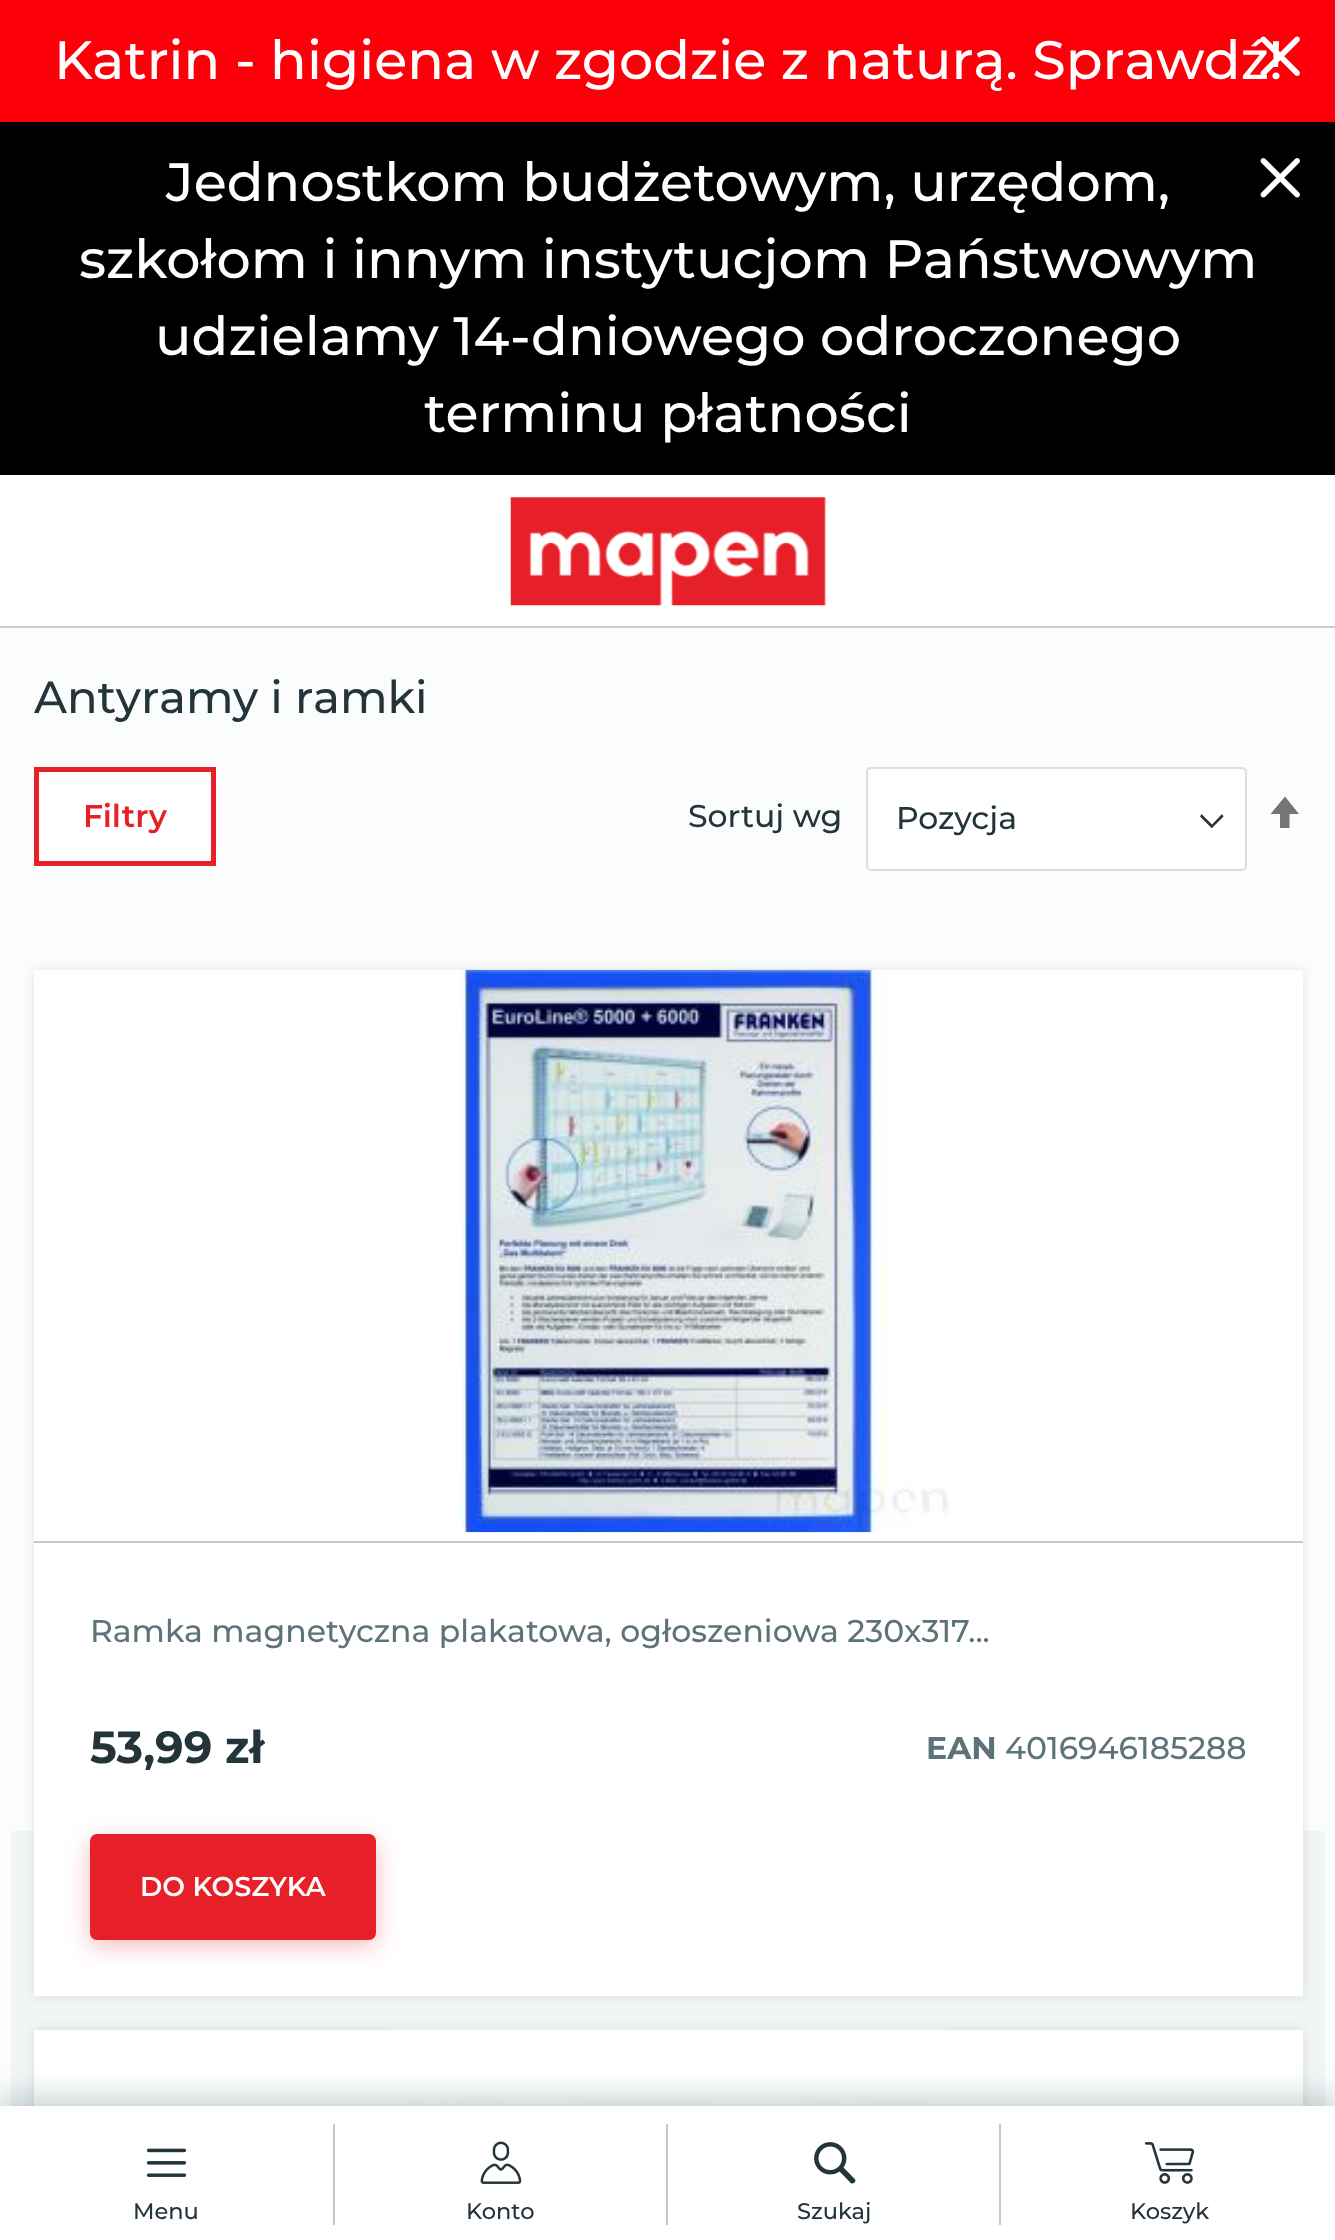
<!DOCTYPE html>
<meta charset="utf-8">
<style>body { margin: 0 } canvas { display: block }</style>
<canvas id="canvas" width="1335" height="2240"></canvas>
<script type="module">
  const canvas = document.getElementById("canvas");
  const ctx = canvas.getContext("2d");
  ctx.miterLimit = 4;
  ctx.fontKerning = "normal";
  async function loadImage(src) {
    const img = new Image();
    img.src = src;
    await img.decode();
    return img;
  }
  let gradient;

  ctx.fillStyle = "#fc0009";
  ctx.fillRect(0, 0, 1335, 2240);
  ctx.font = "500 54px Montserrat";
  ctx.fillStyle = "#ffffff";
  ctx.fillText("Katrin - higiena w zgodzie z naturą. Sprawdź!", 54, 79);
  ctx.drawImage(await loadImage("img1.png"), 1260, 36, 40, 40);
  ctx.fillStyle = "#000000";
  ctx.fillRect(0, 122, 1335, 353);
  ctx.fillStyle = "#ffffff";
  ctx.fillText("Jednostkom budżetowym, urzędom,", 166, 201);
  ctx.fillText("szkołom i innym instytucjom Państwowym", 79, 278);
  ctx.fillText("udzielamy 14-dniowego odroczonego", 155, 355);
  ctx.fillText("terminu płatności", 424, 432);
  ctx.drawImage(await loadImage("img2.png"), 1260, 158, 40, 40);
  gradient = ctx.createLinearGradient(668, 475, 668, 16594);
  gradient.addColorStop(0, "#f0f4f5");
  gradient.addColorStop(1, "#ffffff");
  ctx.fillStyle = gradient;
  ctx.fillRect(11, 1831, 1314, 275);
  ctx.save();
  ctx.beginPath();
  ctx.rect(0, 475, 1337, 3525);
  ctx.clip();
  ctx.fillStyle = "#fbfcfc";
  ctx.beginPath();
  ctx.moveTo(-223, 252);
  ctx.lineTo(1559, 252);
  ctx.lineTo(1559, 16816);
  ctx.lineTo(-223, 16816);
  ctx.closePath();
  ctx.moveTo(11, 1831);
  ctx.lineTo(1325, 1831);
  ctx.lineTo(1325, 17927);
  ctx.lineTo(11, 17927);
  ctx.closePath();
  ctx.fill("evenodd");
  ctx.restore();
  ctx.fillStyle = "#ffffff";
  ctx.fillRect(0, 475, 1335, 151);
  ctx.fillStyle = "#cccccc";
  ctx.fillRect(0, 626, 1335, 2);
  ctx.drawImage(await loadImage("img3.png"), 510, 497, 316, 109);
  ctx.font = "500 45px Montserrat";
  ctx.fillStyle = "#23343a";
  ctx.fillText("Antyramy i ramki", 34, 713);
  ctx.fillStyle = "#ffffff";
  ctx.beginPath();
  ctx.rect(36.5, 769.5, 177, 94);
  ctx.fill();
  ctx.strokeStyle = "#e71f28";
  ctx.lineWidth = 5;
  ctx.stroke();
  ctx.font = "600 31.5px Montserrat";
  ctx.fillStyle = "#e71f28";
  ctx.fillText("Filtry", 83, 827);
  ctx.font = "500 31.5px Montserrat";
  ctx.fillStyle = "#23343a";
  ctx.fillText("Sortuj wg", 688, 827);
  ctx.fillStyle = "#ffffff";
  ctx.beginPath();
  ctx.roundRect(869, 770, 375, 99, 2);
  ctx.fill();
  ctx.fillStyle = "#333333";
  ctx.beginPath();
  ctx.moveTo(1212, 828);
  ctx.lineTo(1223.5, 816.5);
  ctx.lineTo(1222, 814);
  ctx.lineTo(1212, 824.5);
  ctx.lineTo(1201.5, 814);
  ctx.lineTo(1200, 816.5);
  ctx.lineTo(1212, 828.5);
  ctx.closePath();
  ctx.fill("evenodd");
  ctx.beginPath();
  ctx.roundRect(867, 768, 379, 102, 4);
  ctx.strokeStyle = "#d8e0e3";
  ctx.lineWidth = 2;
  ctx.stroke();
  ctx.fillStyle = "#23343a";
  ctx.fillText("Pozycja", 896, 829);
  ctx.fillStyle = "#757575";
  ctx.beginPath();
  ctx.moveTo(1285, 796.5);
  ctx.lineTo(1270.5, 814);
  ctx.lineTo(1280, 814);
  ctx.lineTo(1280, 828);
  ctx.lineTo(1289.5, 828);
  ctx.lineTo(1289.5, 814);
  ctx.lineTo(1299, 814);
  ctx.closePath();
  ctx.fill();
  ctx.fillStyle = "rgba(0, 0, 0, 0.1)";
  ctx.filter = "blur(5.5px)";
  ctx.beginPath();
  ctx.rect(34, 970, 1269, 1026);
  ctx.fill();
  ctx.filter = "none";
  ctx.fillStyle = "#ffffff";
  ctx.fillRect(34, 970, 1269, 1026);
  ctx.fillStyle = "#c0cbcf";
  ctx.fillRect(34, 1541, 1269, 2);
  ctx.drawImage(await loadImage("img4.png"), 458, 969, 491, 564);
  ctx.fillStyle = "#5d7379";
  ctx.fillText("Ramka magnetyczna plakatowa, ogłoszeniowa 230x317...", 90, 1642);
  ctx.font = "bold 45px Montserrat";
  ctx.fillStyle = "#23343a";
  ctx.fillText("53,99 zł", 90, 1763);
  ctx.font = "bold 31.5px Montserrat";
  ctx.fillStyle = "#5d7379";
  ctx.fillText("EAN", 926, 1759);
  ctx.font = "500 31.5px Montserrat";
  ctx.fillText("4016946185288", 1005, 1759);
  ctx.fillStyle = "rgba(231, 31, 40, 0.3)";
  ctx.filter = "blur(12.5px)";
  ctx.beginPath();
  ctx.roundRect(90, 1841, 286, 105, 7);
  ctx.fill();
  ctx.filter = "none";
  ctx.fillStyle = "#e71f28";
  ctx.beginPath();
  ctx.roundRect(92.5, 1836.5, 281, 101, 4.5);
  ctx.fill();
  ctx.strokeStyle = "#e71f28";
  ctx.lineWidth = 5;
  ctx.stroke();
  ctx.font = "600 27px Montserrat";
  ctx.fillStyle = "#ffffff";
  ctx.fillText("DO KOSZYKA", 140, 1896);
  ctx.fillStyle = "rgba(0, 0, 0, 0.1)";
  ctx.filter = "blur(5.5px)";
  ctx.beginPath();
  ctx.rect(34, 2030, 1269, 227);
  ctx.fill();
  ctx.filter = "none";
  ctx.fillStyle = "#ffffff";
  ctx.fillRect(34, 2030, 1269, 76);
  ctx.drawImage(await loadImage("img5.png"), 387, 2029, 562, 77);
  ctx.fillStyle = "rgba(93, 115, 121, 0.3)";
  ctx.filter = "blur(13.5px)";
  ctx.beginPath();
  ctx.rect(0, 2095, 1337, 137);
  ctx.fill();
  ctx.filter = "none";
  ctx.fillStyle = "#ffffff";
  ctx.fillRect(0, 2106, 1335, 134);
  ctx.drawImage(await loadImage("img6.png"), 146, 2148, 41, 29);
  ctx.font = "500 22.5px Montserrat";
  ctx.fillStyle = "#23343a";
  ctx.fillText("Menu", 133, 2219);
  ctx.fillStyle = "#c0cbcf";
  ctx.fillRect(333, 2124, 2, 101);
  ctx.drawImage(await loadImage("img7.png"), 480, 2141, 42, 43);
  ctx.fillStyle = "#23343a";
  ctx.fillText("Konto", 466, 2219);
  ctx.fillStyle = "#c0cbcf";
  ctx.fillRect(666, 2124, 2, 101);
  ctx.drawImage(await loadImage("img8.png"), 814, 2142, 42, 42);
  ctx.fillStyle = "#23343a";
  ctx.fillText("Szukaj", 797, 2219);
  ctx.fillStyle = "#c0cbcf";
  ctx.fillRect(999, 2124, 2, 101);
  ctx.drawImage(await loadImage("img9.png"), 1144, 2142, 51, 42);
  ctx.fillStyle = "#23343a";
  ctx.fillText("Koszyk", 1130, 2219);
</script>
